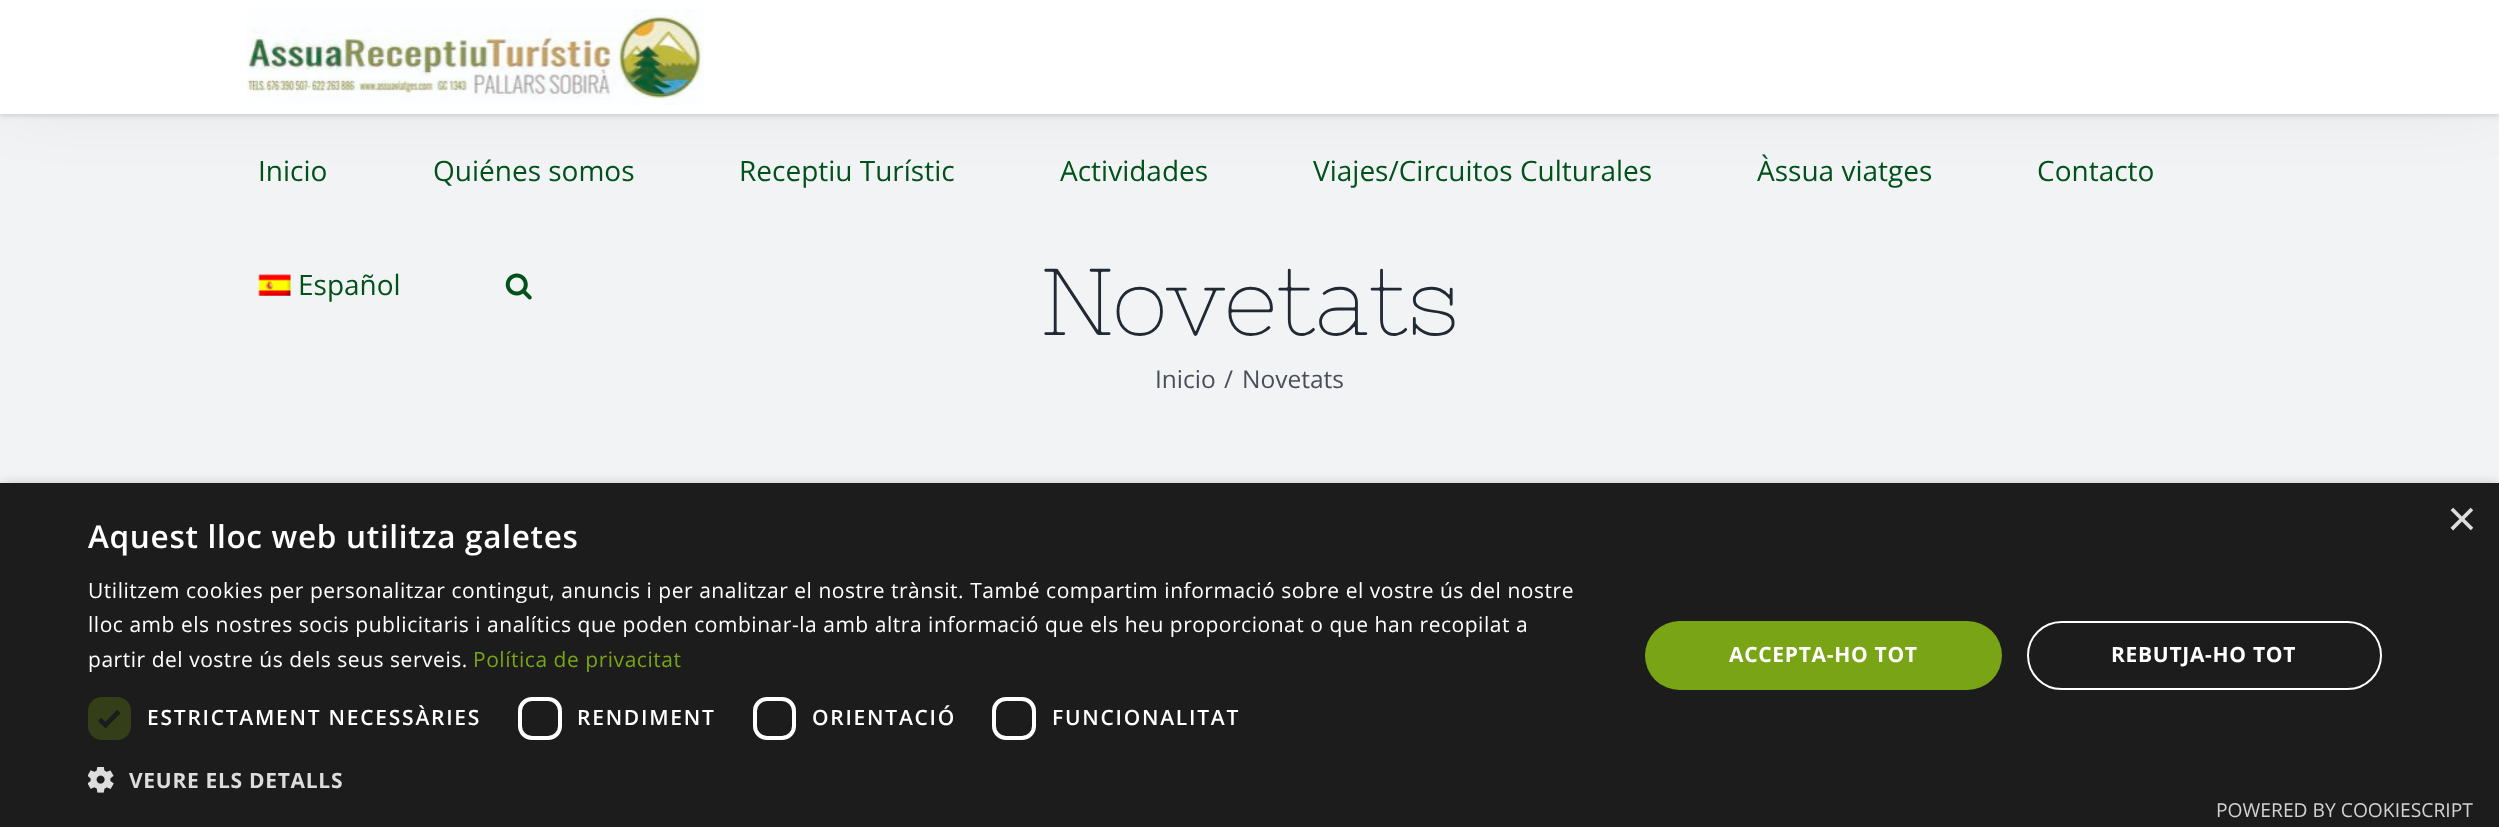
<!DOCTYPE html>
<meta charset="utf-8">
<style>body { margin: 0 } canvas { display: block }</style>
<canvas id="canvas" width="2499" height="827"></canvas>
<script type="module">
  const canvas = document.getElementById("canvas");
  const ctx = canvas.getContext("2d");
  ctx.miterLimit = 4;
  ctx.fontKerning = "normal";
  async function loadImage(src) {
    const img = new Image();
    img.src = src;
    await img.decode();
    return img;
  }

  ctx.fillStyle = "#f2f3f5";
  ctx.fillRect(0, 0, 2499, 827);
  ctx.fillStyle = "rgba(0, 0, 0, 0.14)";
  ctx.filter = "blur(44px)";
  ctx.beginPath();
  ctx.rect(4, -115, 2492, 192);
  ctx.fill();
  ctx.filter = "none";
  ctx.fillStyle = "rgba(0, 0, 0, 0.12)";
  ctx.filter = "blur(2.5px)";
  ctx.beginPath();
  ctx.rect(0, 2, 2499, 114);
  ctx.fill();
  ctx.filter = "none";
  ctx.fillStyle = "#ffffff";
  ctx.fillRect(0, 0, 2499, 114);
  ctx.drawImage(await loadImage("img1.png"), 247, 9, 457, 96);
  ctx.font = "28px Open Sans";
  ctx.fillStyle = "#00511a";
  ctx.fillText("Inicio", 258, 181);
  ctx.fillText("Quiénes somos", 433, 181);
  ctx.fillText("Receptiu Turístic", 739, 181);
  ctx.fillText("Actividades", 1060, 181);
  ctx.fillText("Viajes/Circuitos Culturales", 1313, 181);
  ctx.fillText("Àssua viatges", 1757, 181);
  ctx.fillText("Contacto", 2037, 181);
  ctx.drawImage(await loadImage("img2.png"), 258, 274, 33, 22);
  ctx.fillText("Español", 298, 295);
  ctx.drawImage(await loadImage("img3.png"), 505, 273, 27, 27);
  ctx.font = "94.5px Nixie One";
  ctx.fillStyle = "#212934";
  ctx.fillText("Novetats", 1040, 335);
  ctx.font = "24.5px Open Sans";
  ctx.fillStyle = "#4a4e57";
  ctx.fillText("Inicio", 1155, 388);
  ctx.fillText("/", 1224, 388);
  ctx.fillText("Novetats", 1242, 388);
  ctx.fillStyle = "rgba(0, 0, 0, 0.35)";
  ctx.filter = "blur(7px)";
  ctx.beginPath();
  ctx.rect(2, 487, 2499, 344);
  ctx.fill();
  ctx.filter = "none";
  ctx.fillStyle = "#1c1c1c";
  ctx.fillRect(0, 483, 2499, 344);
  ctx.font = "51px Liberation Sans";
  ctx.fillStyle = "#dddddd";
  ctx.fillText("×", 2447, 536);
  ctx.letterSpacing = "0.7px";
  ctx.font = "600 31.5px Open Sans";
  ctx.fillStyle = "#ffffff";
  ctx.fillText("Aquest lloc web utilitza galetes", 88, 548);
  ctx.letterSpacing = "0.53px";
  ctx.font = "21px Open Sans";
  ctx.fillText("Utilitzem cookies per personalitzar contingut, anuncis i per analitzar el nostre trànsit. També compartim informació sobre el vostre ús del nostre", 88, 598);
  ctx.fillText("lloc amb els nostres socis publicitaris i analítics que poden combinar-la amb altra informació que els heu proporcionat o que han recopilat a", 88, 632);
  ctx.fillText("partir del vostre ús dels seus serveis.", 88, 667);
  ctx.fillStyle = "#78a415";
  ctx.fillText("Política de privacitat", 473, 667);
  ctx.fillStyle = "#343f1a";
  ctx.beginPath();
  ctx.roundRect(88, 697, 43, 43, 14);
  ctx.fill();
  ctx.beginPath();
  ctx.moveTo(99.5, 719.5);
  ctx.lineTo(105.5, 725);
  ctx.lineTo(119, 711.5);
  ctx.strokeStyle = "#1c1c1c";
  ctx.lineWidth = 4.6;
  ctx.stroke();
  ctx.letterSpacing = "1.75px";
  ctx.font = "600 21px Open Sans";
  ctx.fillStyle = "#ffffff";
  ctx.fillText("ESTRICTAMENT NECESSÀRIES", 147, 725);
  ctx.beginPath();
  ctx.roundRect(520, 699, 40, 39, 12);
  ctx.strokeStyle = "#ffffff";
  ctx.lineWidth = 4;
  ctx.stroke();
  ctx.fillText("RENDIMENT", 577, 725);
  ctx.beginPath();
  ctx.roundRect(755, 699, 39, 39, 12);
  ctx.stroke();
  ctx.fillText("ORIENTACIÓ", 812, 725);
  ctx.beginPath();
  ctx.roundRect(994, 699, 40, 39, 12);
  ctx.stroke();
  ctx.fillText("FUNCIONALITAT", 1052, 725);
  ctx.drawImage(await loadImage("img4.png"), 88, 767, 26, 26);
  ctx.letterSpacing = "0.7px";
  ctx.font = "bold 21px Open Sans";
  ctx.fillStyle = "#dddddd";
  ctx.fillText("VEURE ELS DETALLS", 129, 788);
  ctx.fillStyle = "#78a415";
  ctx.beginPath();
  ctx.roundRect(1645, 621, 357, 69, 34.5);
  ctx.fill();
  ctx.fillStyle = "#ffffff";
  ctx.fillText("ACCEPTA-HO TOT", 1729, 662);
  ctx.beginPath();
  ctx.roundRect(2028, 622, 353, 67, 33.5);
  ctx.lineWidth = 2;
  ctx.stroke();
  ctx.fillText("REBUTJA-HO TOT", 2111, 662);
  ctx.letterSpacing = "0px";
  ctx.font = "19.25px Open Sans";
  ctx.fillStyle = "#d2d2d2";
  ctx.fillText("POWERED BY COOKIESCRIPT", 2216, 817);
</script>
